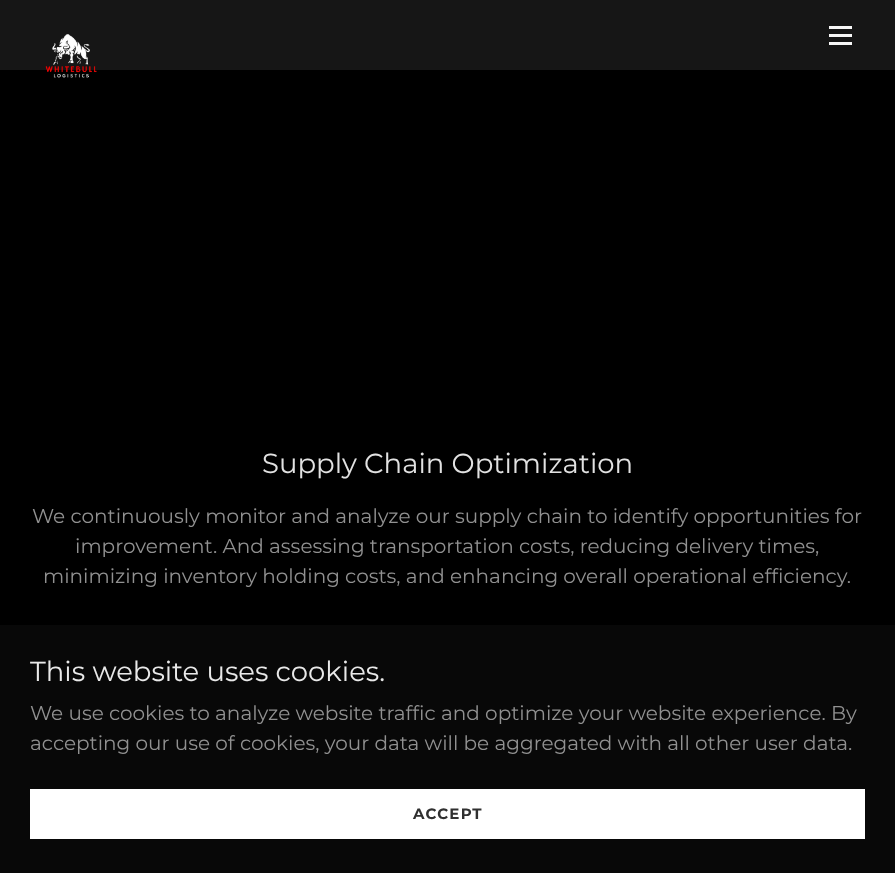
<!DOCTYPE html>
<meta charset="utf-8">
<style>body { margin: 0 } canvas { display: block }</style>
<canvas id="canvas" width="895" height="873"></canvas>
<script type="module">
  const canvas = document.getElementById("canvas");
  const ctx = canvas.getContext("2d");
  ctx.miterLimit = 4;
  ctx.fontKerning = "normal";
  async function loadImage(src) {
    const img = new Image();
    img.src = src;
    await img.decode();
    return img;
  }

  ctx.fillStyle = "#000000";
  ctx.fillRect(0, 0, 895, 873);
  ctx.fillStyle = "#161616";
  ctx.fillRect(0, 0, 895, 70);
  ctx.drawImage(await loadImage("img1.png"), 45, 34, 52, 44);
  ctx.fillStyle = "#f7f7f7";
  ctx.fillRect(829, 26, 23, 3);
  ctx.fillRect(829, 34, 23, 3);
  ctx.fillRect(829, 42, 23, 3);
  ctx.font = "27.5px Montserrat";
  ctx.fillStyle = "#e2e2e2";
  ctx.fillText("Supply Chain Optimization", 262, 473);
  ctx.font = "20px Montserrat";
  ctx.fillStyle = "#919191";
  ctx.fillText("We continuously monitor and analyze our supply chain to identify opportunities for", 32, 523);
  ctx.fillText("improvement. And assessing transportation costs, reducing delivery times,", 75, 553);
  ctx.fillText("minimizing inventory holding costs, and enhancing overall operational efficiency.", 43, 583);
  ctx.fillStyle = "#080808";
  ctx.fillRect(0, 625, 895, 248);
  ctx.font = "27.5px Montserrat";
  ctx.fillStyle = "#e9e9e9";
  ctx.fillText("This website uses cookies.", 30, 681);
  ctx.font = "20px Montserrat";
  ctx.fillStyle = "#919191";
  ctx.fillText("We use cookies to analyze website traffic and optimize your website experience. By", 30, 720);
  ctx.fillText("accepting our use of cookies, your data will be aggregated with all other user data.", 30, 750);
  ctx.fillStyle = "#ffffff";
  ctx.fillRect(30, 789, 835, 50);
  ctx.letterSpacing = "1.25px";
  ctx.font = "bold 15px Montserrat";
  ctx.fillStyle = "#303030";
  ctx.fillText("ACCEPT", 413, 819);
</script>
